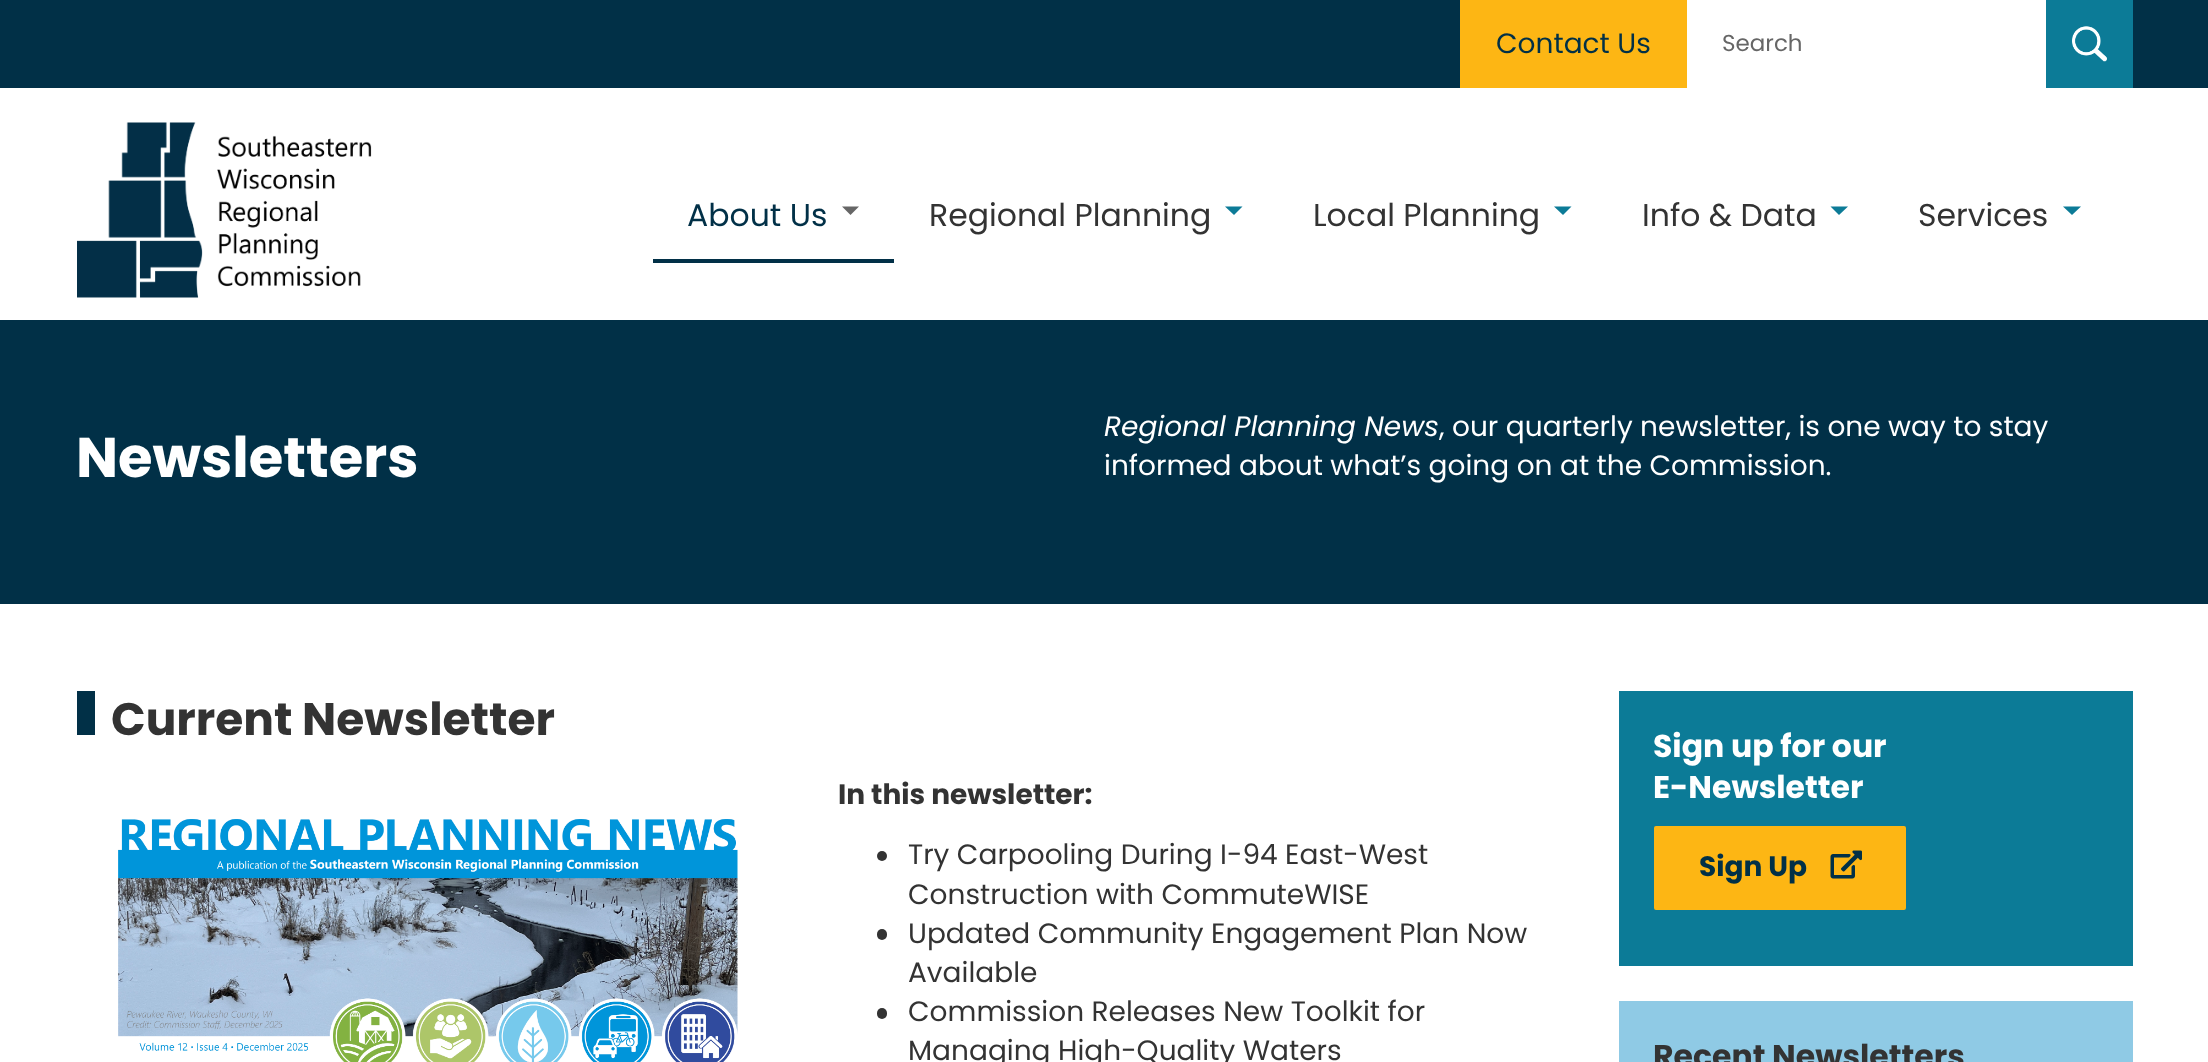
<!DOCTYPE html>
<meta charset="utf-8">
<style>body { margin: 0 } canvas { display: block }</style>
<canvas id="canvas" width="2208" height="1062"></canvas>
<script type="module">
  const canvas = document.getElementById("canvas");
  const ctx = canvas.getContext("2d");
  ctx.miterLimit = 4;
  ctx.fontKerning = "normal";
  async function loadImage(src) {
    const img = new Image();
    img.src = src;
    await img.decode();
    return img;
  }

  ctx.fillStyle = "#ffffff";
  ctx.fillRect(0, 0, 2208, 1062);
  ctx.fillStyle = "#013047";
  ctx.fillRect(0, 0, 2208, 88);
  ctx.fillStyle = "#fdb614";
  ctx.fillRect(1460, 0, 227, 88);
  ctx.font = "28px Poppins";
  ctx.fillStyle = "#013047";
  ctx.fillText("Contact Us", 1496, 53);
  ctx.fillStyle = "#ffffff";
  ctx.fillRect(1687, 0, 359, 88);
  ctx.font = "23px Poppins";
  ctx.fillStyle = "#666666";
  ctx.fillText("Search", 1722, 51);
  ctx.fillStyle = "#0c7b97";
  ctx.fillRect(2046, 0, 87, 88);
  ctx.drawImage(await loadImage("img1.png"), 2072, 26, 35, 36);
  ctx.drawImage(await loadImage("img2.png"), 77, 122, 295, 176);
  ctx.save();
  ctx.beginPath();
  ctx.rect(653, 166, 241, 97);
  ctx.clip();
  ctx.fillStyle = "#013047";
  ctx.beginPath();
  ctx.moveTo(480, -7);
  ctx.lineTo(1068, -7);
  ctx.lineTo(1068, 436);
  ctx.lineTo(480, 436);
  ctx.closePath();
  ctx.moveTo(653, 159);
  ctx.lineTo(894, 159);
  ctx.bezierCurveTo(895, 159, 896, 160, 896, 161);
  ctx.lineTo(896, 257);
  ctx.bezierCurveTo(896, 258, 895, 259, 894, 259);
  ctx.lineTo(653, 259);
  ctx.bezierCurveTo(652, 259, 651, 258, 651, 257);
  ctx.lineTo(651, 161);
  ctx.bezierCurveTo(651, 160, 652, 159, 653, 159);
  ctx.closePath();
  ctx.fill("evenodd");
  ctx.restore();
  ctx.font = "31.5px Poppins";
  ctx.fillStyle = "#013047";
  ctx.fillText("About Us", 687, 226);
  ctx.fillStyle = "#666666";
  ctx.beginPath();
  ctx.moveTo(842, 206.5);
  ctx.lineTo(859, 206.5);
  ctx.lineTo(850.5, 215);
  ctx.closePath();
  ctx.fill();
  ctx.fillStyle = "#333333";
  ctx.fillText("Regional Planning", 929, 226);
  ctx.fillStyle = "#0c7b97";
  ctx.beginPath();
  ctx.moveTo(1225, 206.5);
  ctx.lineTo(1242.5, 206.5);
  ctx.lineTo(1234, 215);
  ctx.closePath();
  ctx.fill();
  ctx.fillStyle = "#333333";
  ctx.fillText("Local Planning", 1313, 226);
  ctx.fillStyle = "#0c7b97";
  ctx.beginPath();
  ctx.moveTo(1554, 206.5);
  ctx.lineTo(1571.5, 206.5);
  ctx.lineTo(1563, 215);
  ctx.closePath();
  ctx.fill();
  ctx.fillStyle = "#333333";
  ctx.fillText("Info & Data", 1642, 226);
  ctx.fillStyle = "#0c7b97";
  ctx.beginPath();
  ctx.moveTo(1830.5, 206.5);
  ctx.lineTo(1848, 206.5);
  ctx.lineTo(1839, 215);
  ctx.closePath();
  ctx.fill();
  ctx.fillStyle = "#333333";
  ctx.fillText("Services", 1918, 226);
  ctx.fillStyle = "#0c7b97";
  ctx.beginPath();
  ctx.moveTo(2063, 206.5);
  ctx.lineTo(2081, 206.5);
  ctx.lineTo(2072, 215);
  ctx.closePath();
  ctx.fill();
  ctx.fillStyle = "#013047";
  ctx.fillRect(0, 320, 2208, 284);
  ctx.font = "bold 56px Poppins";
  ctx.fillStyle = "#ffffff";
  ctx.fillText("Newsletters", 76, 477);
  ctx.font = "italic 28px Poppins";
  ctx.fillText("Regional Planning News", 1104, 436);
  ctx.font = "28px Poppins";
  ctx.fillText(", our quarterly newsletter, is one way to stay", 1439, 436);
  ctx.fillText("informed about what’s going on at the Commission.", 1104, 475);
  ctx.fillStyle = "#013047";
  ctx.fillRect(77, 691, 18, 44);
  ctx.font = "bold 45.5px Poppins";
  ctx.fillStyle = "#333333";
  ctx.fillText("Current Newsletter", 111, 735);
  ctx.drawImage(await loadImage("img3.png"), 118, 819, 620, 243);
  ctx.font = "bold 28px Poppins";
  ctx.fillText("In this newsletter:", 838, 804);
  ctx.beginPath();
  ctx.arc(882, 856, 5, 0, Math.PI * 2);
  ctx.fill();
  ctx.font = "28px Poppins";
  ctx.fillText("Try Carpooling During I-94 East-West", 908, 864);
  ctx.fillText("Construction with CommuteWISE", 908, 904);
  ctx.beginPath();
  ctx.roundRect(877, 929, 10, 11, 5);
  ctx.fill();
  ctx.fillText("Updated Community Engagement Plan Now", 908, 943);
  ctx.fillText("Available", 908, 982);
  ctx.beginPath();
  ctx.roundRect(877, 1008, 10, 11, 5);
  ctx.fill();
  ctx.fillText("Commission Releases New Toolkit for", 908, 1021);
  ctx.fillText("Managing High-Quality Waters", 908, 1060);
  ctx.fillStyle = "#0c7b97";
  ctx.fillRect(1619, 691, 514, 275);
  ctx.font = "bold 31.5px Poppins";
  ctx.fillStyle = "#ffffff";
  ctx.fillText("Sign up for our", 1653, 757);
  ctx.fillText("E-Newsletter", 1653, 798);
  ctx.fillStyle = "#fdb614";
  ctx.beginPath();
  ctx.roundRect(1655, 827, 250, 82, 1);
  ctx.fill();
  ctx.strokeStyle = "#fdb614";
  ctx.lineWidth = 2;
  ctx.stroke();
  ctx.font = "bold 28px Poppins";
  ctx.fillStyle = "#013047";
  ctx.fillText("Sign Up", 1699, 876);
  ctx.drawImage(await loadImage("img4.png"), 1830, 850, 32, 29);
  ctx.fillStyle = "#8fcae5";
  ctx.fillRect(1619, 1001, 514, 61);
  ctx.font = "bold 31.5px Poppins";
  ctx.fillStyle = "#333333";
  ctx.fillText("Recent Newsletters", 1653, 1067);
</script>
